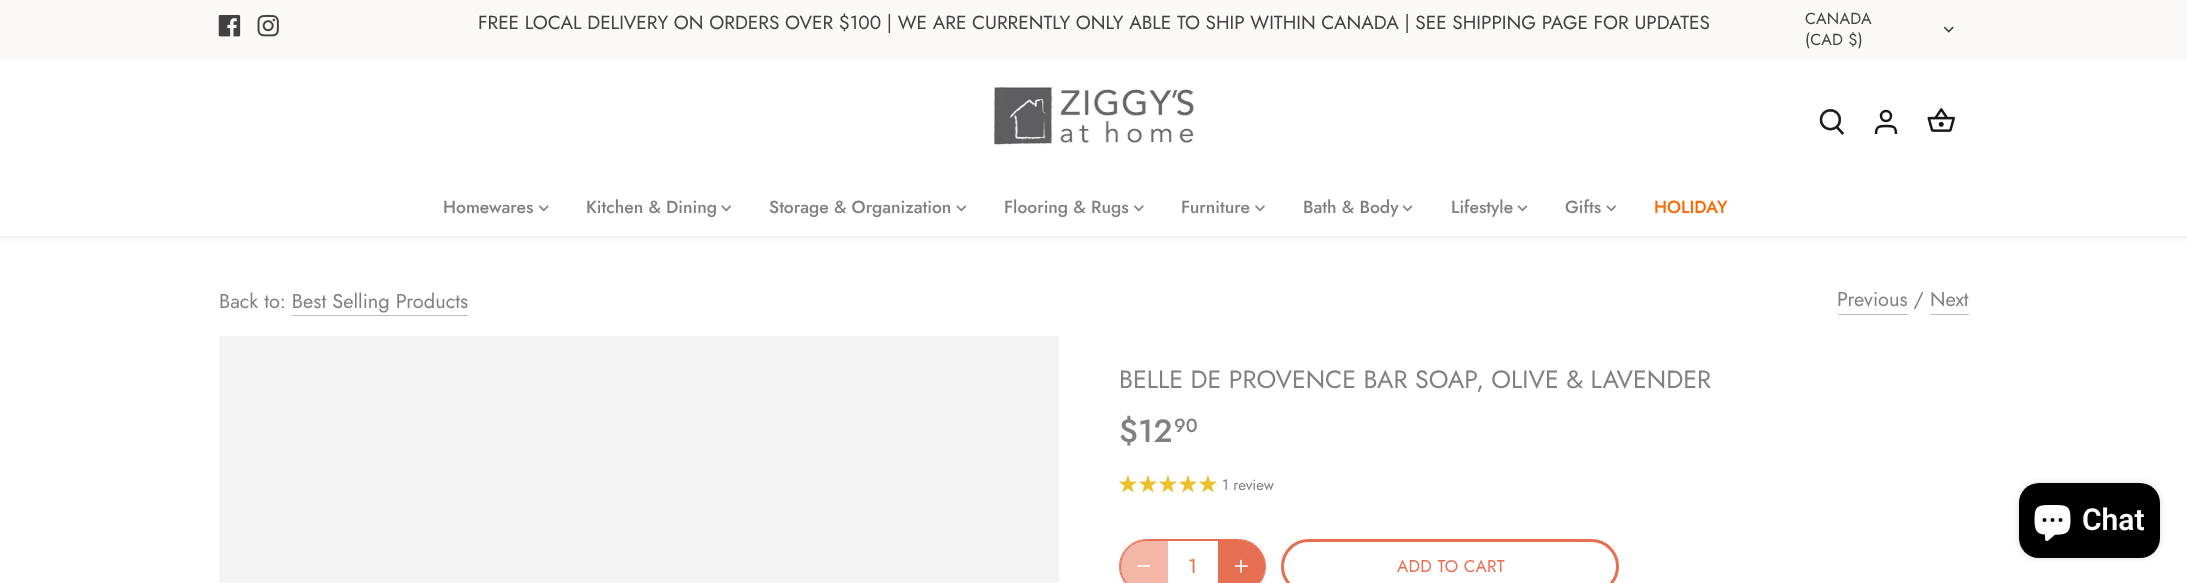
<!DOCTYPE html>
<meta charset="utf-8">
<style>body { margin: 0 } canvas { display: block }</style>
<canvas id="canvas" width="2187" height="583"></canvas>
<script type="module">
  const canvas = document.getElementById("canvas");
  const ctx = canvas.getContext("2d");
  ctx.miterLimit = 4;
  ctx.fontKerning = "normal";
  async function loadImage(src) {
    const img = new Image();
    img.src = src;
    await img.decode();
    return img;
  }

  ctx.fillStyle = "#ffffff";
  ctx.fillRect(0, 0, 2187, 583);
  ctx.fillStyle = "rgba(0, 0, 0, 0.08)";
  ctx.filter = "blur(2px)";
  ctx.beginPath();
  ctx.rect(-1, 60, 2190, 178);
  ctx.fill();
  ctx.filter = "none";
  ctx.fillStyle = "#fbf9f7";
  ctx.fillRect(0, 0, 2187, 61);
  ctx.drawImage(await loadImage("img1.png"), 218, 15, 23, 22);
  ctx.drawImage(await loadImage("img2.png"), 257, 15, 22, 22);
  ctx.font = "19px Jost";
  ctx.fillStyle = "#414141";
  ctx.fillText("FREE LOCAL DELIVERY ON ORDERS OVER $100 | WE ARE CURRENTLY ONLY ABLE TO SHIP WITHIN CANADA | SEE SHIPPING PAGE FOR UPDATES", 478, 29);
  ctx.letterSpacing = "0.25px";
  ctx.font = "16px Jost";
  ctx.fillText("CANADA", 1805, 24);
  ctx.drawImage(await loadImage("img3.png"), 1943, 26, 11, 7);
  ctx.fillText("(CAD $)", 1805, 45);
  ctx.fillStyle = "#ffffff";
  ctx.fillRect(0, 61, 2187, 175);
  ctx.drawImage(await loadImage("img4.png"), 993, 86, 201, 59);
  ctx.drawImage(await loadImage("img5.png"), 1819, 109, 26, 26);
  ctx.beginPath();
  ctx.arc(1886, 116, 5, 0, Math.PI * 2);
  ctx.strokeStyle = "#191817";
  ctx.lineWidth = 2.5;
  ctx.stroke();
  ctx.beginPath();
  ctx.moveTo(1896, 134);
  ctx.bezierCurveTo(1896, 126, 1893, 126, 1886, 126);
  ctx.bezierCurveTo(1879.5, 126, 1876, 126, 1876, 134);
  ctx.stroke();
  ctx.drawImage(await loadImage("img6.png"), 1927, 108, 28, 24);
  ctx.letterSpacing = "0px";
  ctx.font = "500 17.5px Jost";
  ctx.fillStyle = "#807f83";
  ctx.fillText("Homewares", 443, 213);
  ctx.drawImage(await loadImage("img7.png"), 538, 205, 11, 7);
  ctx.fillText("Kitchen & Dining", 586, 213);
  ctx.drawImage(await loadImage("img8.png"), 721, 205, 11, 7);
  ctx.fillText("Storage & Organization", 769, 213);
  ctx.drawImage(await loadImage("img8.png"), 956, 205, 11, 7);
  ctx.fillText("Flooring & Rugs", 1004, 213);
  ctx.drawImage(await loadImage("img7.png"), 1133, 205, 11, 7);
  ctx.fillText("Furniture", 1181, 213);
  ctx.drawImage(await loadImage("img9.png"), 1255, 205, 10, 7);
  ctx.fillText("Bath & Body", 1303, 213);
  ctx.drawImage(await loadImage("img10.png"), 1402, 205, 11, 7);
  ctx.fillText("Lifestyle", 1451, 213);
  ctx.drawImage(await loadImage("img10.png"), 1517, 205, 11, 7);
  ctx.fillText("Gifts", 1565, 213);
  ctx.drawImage(await loadImage("img8.png"), 1606, 205, 11, 7);
  ctx.fillStyle = "#ff6600";
  ctx.fillText("HOLIDAY", 1654, 213);
  ctx.font = "20px Jost";
  ctx.fillStyle = "#807f83";
  ctx.fillText("Back to: Best Selling Products", 219, 308);
  ctx.fillStyle = "#c0bfc1";
  ctx.fillRect(291, 315, 177, 1);
  ctx.fillStyle = "#807f83";
  ctx.fillText("Previous / Next", 1837, 306);
  ctx.fillStyle = "#c0bfc1";
  ctx.fillRect(1838, 314, 70, 1);
  ctx.fillRect(1930, 314, 39, 1);
  ctx.fillStyle = "#f3f3f3";
  ctx.fillRect(219, 336, 840, 247);
  ctx.font = "25px Jost";
  ctx.fillStyle = "#807f83";
  ctx.fillText("BELLE DE PROVENCE BAR SOAP, OLIVE & LAVENDER", 1119, 388);
  ctx.font = "500 32px Jost";
  ctx.fillText("$12", 1119, 442);
  ctx.font = "500 19px Jost";
  ctx.fillText("90", 1174, 432);
  ctx.drawImage(await loadImage("img11.png"), 1119, 475, 17, 18);
  ctx.drawImage(await loadImage("img11.png"), 1139, 475, 17, 18);
  ctx.drawImage(await loadImage("img11.png"), 1159, 475, 17, 18);
  ctx.drawImage(await loadImage("img11.png"), 1179, 475, 17, 18);
  ctx.drawImage(await loadImage("img11.png"), 1199, 475, 17, 18);
  ctx.drawImage(await loadImage("img12.png"), 1119, 475, 17, 18);
  ctx.drawImage(await loadImage("img12.png"), 1139, 475, 17, 18);
  ctx.drawImage(await loadImage("img12.png"), 1159, 475, 17, 18);
  ctx.drawImage(await loadImage("img12.png"), 1179, 475, 17, 18);
  ctx.drawImage(await loadImage("img12.png"), 1199, 475, 17, 18);
  ctx.font = "15px Jost";
  ctx.fillText("1 review", 1222, 490);
  ctx.beginPath();
  ctx.roundRect(1120.5, 540.5, 144, 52, 26);
  ctx.strokeStyle = "#e76f51";
  ctx.lineWidth = 1;
  ctx.stroke();
  ctx.beginPath();
  ctx.roundRect(1119.5, 539.5, 146, 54, 27);
  ctx.stroke();
  ctx.fillStyle = "rgba(231, 111, 81, 0.5)";
  ctx.beginPath();
  ctx.moveTo(1146.5, 540);
  ctx.lineTo(1168, 540);
  ctx.lineTo(1168, 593);
  ctx.lineTo(1146.5, 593);
  ctx.bezierCurveTo(1132, 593, 1120, 581, 1120, 566.5);
  ctx.bezierCurveTo(1120, 552, 1132, 540, 1146.5, 540);
  ctx.closePath();
  ctx.fill();
  ctx.beginPath();
  ctx.moveTo(1138, 566);
  ctx.lineTo(1149.5, 566);
  ctx.strokeStyle = "#ffffff";
  ctx.lineWidth = 1.7;
  ctx.lineCap = "round";
  ctx.lineJoin = "round";
  ctx.stroke();
  ctx.font = "20px Jost";
  ctx.fillStyle = "#e76f51";
  ctx.fillText("1", 1188, 573);
  ctx.beginPath();
  ctx.moveTo(1218, 540);
  ctx.lineTo(1238.5, 540);
  ctx.bezierCurveTo(1253, 540, 1265, 552, 1265, 566.5);
  ctx.bezierCurveTo(1265, 581, 1253, 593, 1238.5, 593);
  ctx.lineTo(1218, 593);
  ctx.closePath();
  ctx.fill();
  ctx.beginPath();
  ctx.moveTo(1241, 560.5);
  ctx.lineTo(1241, 572);
  ctx.moveTo(1235.5, 566);
  ctx.lineTo(1247, 566);
  ctx.stroke();
  ctx.beginPath();
  ctx.roundRect(1282.5, 540.5, 335, 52, 26);
  ctx.strokeStyle = "#e76f51";
  ctx.lineWidth = 3;
  ctx.lineJoin = "miter";
  ctx.stroke();
  ctx.letterSpacing = "0.25px";
  ctx.font = "17px Jost";
  ctx.fillText("ADD TO CART", 1397, 572);
  ctx.fillStyle = "rgba(0, 0, 0, 0.15)";
  ctx.filter = "blur(3px)";
  ctx.beginPath();
  ctx.roundRect(2019, 483, 141, 75, 20);
  ctx.fill();
  ctx.filter = "none";
  ctx.fillStyle = "#000000";
  ctx.beginPath();
  ctx.roundRect(2019, 483, 141, 75, 20);
  ctx.fill();
  ctx.drawImage(await loadImage("img13.png"), 2034, 505, 37, 36);
  ctx.letterSpacing = "0px";
  ctx.font = "600 30px Roboto";
  ctx.fillStyle = "#ffffff";
  ctx.fillText("Chat", 2082, 530);
</script>
